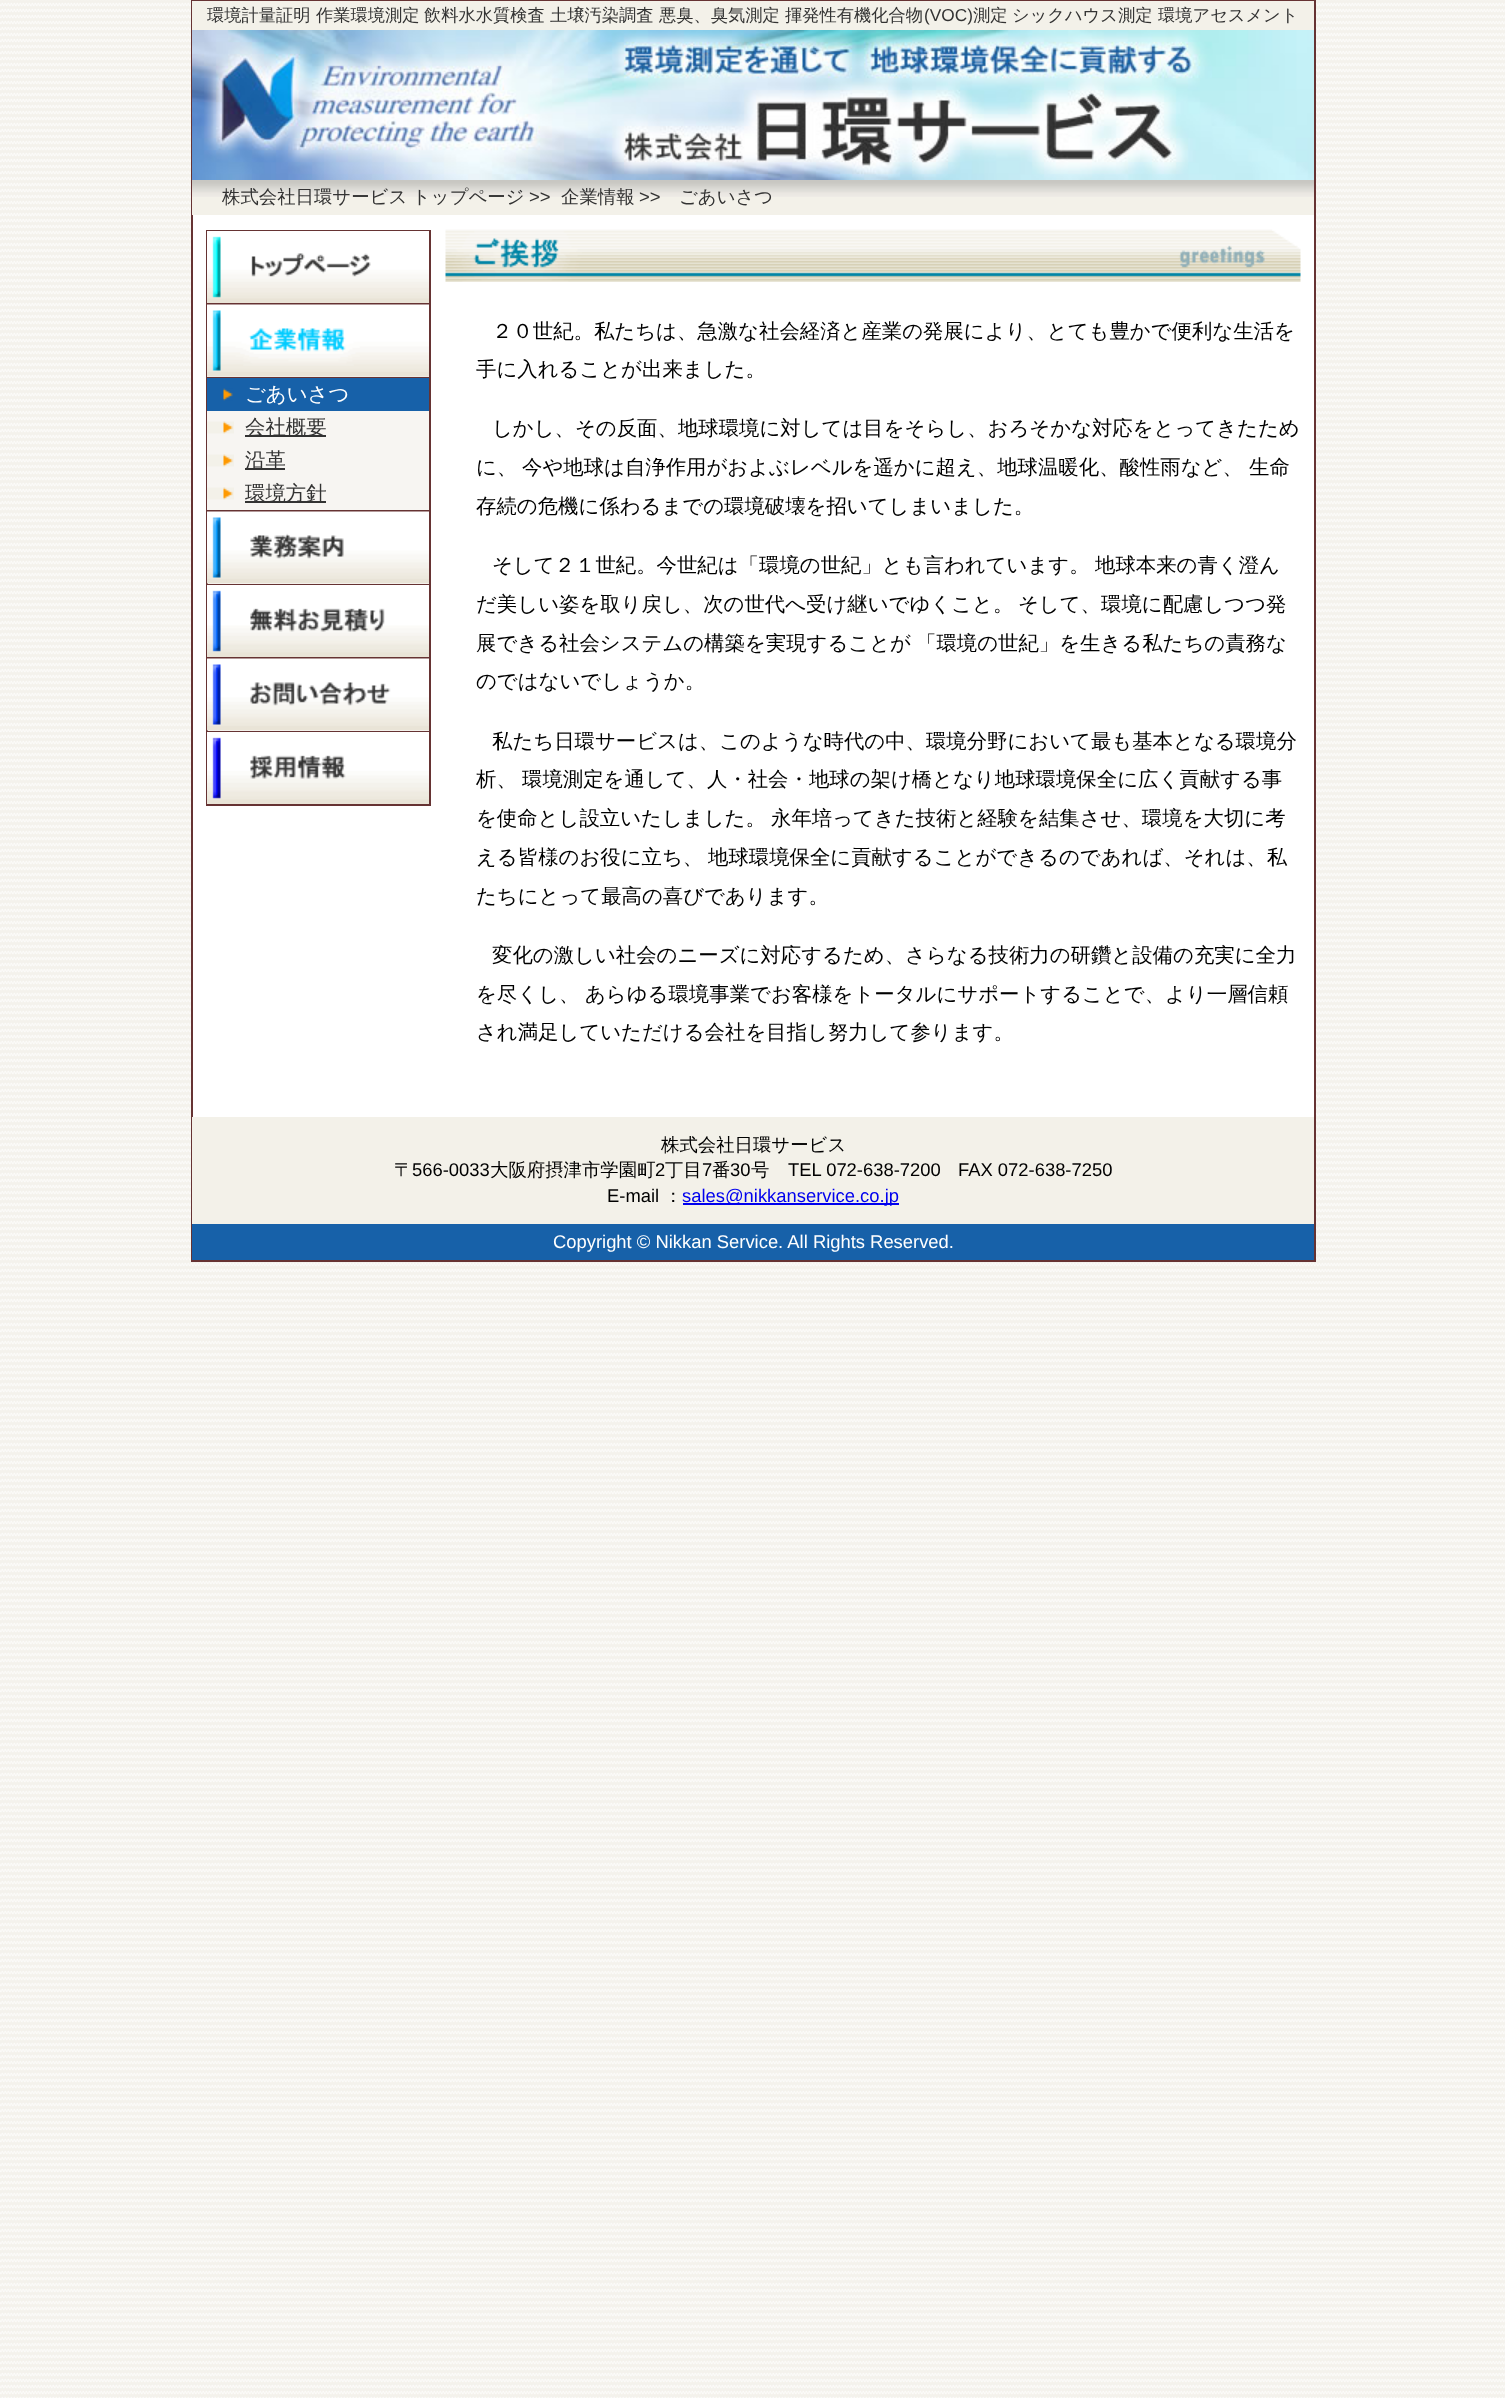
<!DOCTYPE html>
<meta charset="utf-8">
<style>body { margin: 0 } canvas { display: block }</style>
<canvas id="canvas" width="1505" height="2398"></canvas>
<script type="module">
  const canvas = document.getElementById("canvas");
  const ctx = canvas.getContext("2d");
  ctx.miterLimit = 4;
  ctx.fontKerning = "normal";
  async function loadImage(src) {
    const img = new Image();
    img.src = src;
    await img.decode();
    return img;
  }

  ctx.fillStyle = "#ffffff";
  ctx.fillRect(0, 0, 1505, 2398);
  ctx.drawImage(await loadImage("img1.png"), 0, 0, 1505, 2398);
  ctx.fillRect(193, 215, 1121, 902);
  ctx.strokeStyle = "#663333";
  ctx.lineWidth = 2;
  ctx.strokeRect(192, 1, 1123, 1260);
  ctx.fillStyle = "#f3f1e9";
  ctx.fillRect(192, 1, 1122, 29);
  ctx.font = "500 17.25px WenQuanYi Zen Hei";
  ctx.fillStyle = "#333333";
  ctx.fillText("環境計量証明", 207, 21);
  ctx.fillText("作業環境測定", 316, 21);
  ctx.fillText("飲料水水質検査", 424, 21);
  ctx.fillText("土壌汚染調査", 550, 21);
  ctx.fillText("悪臭、臭気測定", 659, 21);
  ctx.fillText("揮発性有機化合物", 785, 21);
  ctx.font = "17.25px Liberation Sans";
  ctx.fillText("(VOC)", 924, 21);
  ctx.font = "500 17.25px WenQuanYi Zen Hei";
  ctx.fillText("測定", 973, 21);
  ctx.fillText("シックハウス測定", 1012, 21);
  ctx.fillText("環境アセスメント", 1158, 21);
  ctx.drawImage(await loadImage("img2.png"), 192, 30, 1122, 150);
  ctx.fillStyle = "#f3f1e9";
  ctx.fillRect(192, 197, 1122, 18);
  ctx.drawImage(await loadImage("img3.png"), 192, 180, 1122, 17);
  ctx.font = "500 18.4px WenQuanYi Zen Hei";
  ctx.fillStyle = "#333333";
  ctx.fillText("株式会社日環サービス", 222, 203);
  ctx.fillText("トップページ", 412, 203);
  ctx.font = "18.4px Liberation Sans";
  ctx.fillText(">>", 529, 203);
  ctx.font = "500 18.4px WenQuanYi Zen Hei";
  ctx.fillText("企業情報", 561, 203);
  ctx.font = "18.4px Liberation Sans";
  ctx.fillText(">>", 639, 203);
  ctx.font = "500 18.4px WenQuanYi Zen Hei";
  ctx.fillText("ごあいさつ", 679, 203);
  ctx.fillStyle = "#663333";
  ctx.fillRect(206, 230, 225, 1);
  ctx.fillRect(429, 230, 2, 576);
  ctx.fillRect(206, 230, 2, 576);
  ctx.fillRect(207, 303, 222, 2);
  ctx.drawImage(await loadImage("img4.png"), 207, 231, 222, 72);
  ctx.fillRect(207, 510, 222, 2);
  ctx.fillStyle = "#f7f5f2";
  ctx.fillRect(207, 376, 222, 134);
  ctx.drawImage(await loadImage("img5.png"), 207, 304, 222, 73);
  ctx.fillStyle = "#663333";
  ctx.fillRect(207, 377, 222, 1);
  ctx.fillStyle = "#1761a9";
  ctx.fillRect(207, 378, 222, 33);
  ctx.drawImage(await loadImage("img6.png"), 223, 388, 10, 13);
  ctx.font = "500 20.4px WenQuanYi Zen Hei";
  ctx.fillStyle = "#ffffff";
  ctx.fillText("ごあいさつ", 245, 401);
  ctx.drawImage(await loadImage("img7.png"), 207, 421, 27, 13);
  ctx.fillStyle = "#333333";
  ctx.fillRect(245, 435, 81, 2);
  ctx.fillText("会社概要", 245, 434);
  ctx.drawImage(await loadImage("img7.png"), 207, 454, 27, 13);
  ctx.fillRect(245, 468, 40, 2);
  ctx.fillText("沿革", 245, 467);
  ctx.drawImage(await loadImage("img7.png"), 207, 487, 27, 13);
  ctx.fillRect(245, 501, 81, 2);
  ctx.fillText("環境方針", 245, 500);
  ctx.fillStyle = "#663333";
  ctx.fillRect(207, 584, 222, 1);
  ctx.drawImage(await loadImage("img8.png"), 207, 511, 222, 73);
  ctx.fillRect(207, 657, 222, 2);
  ctx.drawImage(await loadImage("img9.png"), 207, 585, 222, 72);
  ctx.fillRect(207, 731, 222, 1);
  ctx.drawImage(await loadImage("img10.png"), 207, 658, 222, 73);
  ctx.fillRect(207, 804, 222, 2);
  ctx.drawImage(await loadImage("img11.png"), 207, 732, 222, 72);
  ctx.drawImage(await loadImage("img12.png"), 445, 229, 856, 53);
  ctx.fillStyle = "#000000";
  ctx.fillText("２０世紀。私たちは、急激な社会経済と産業の発展により、とても豊かで便利な生活を", 492, 338);
  ctx.fillText("手に入れることが出来ました。", 476, 376);
  ctx.fillText("しかし、その反面、地球環境に対しては目をそらし、おろそかな対応をとってきたため", 492, 435);
  ctx.fillText("に、", 476, 474);
  ctx.fillText("今や地球は自浄作用がおよぶレベルを遥かに超え、地球温暖化、酸性雨など、", 522, 474);
  ctx.fillText("生命", 1249, 474);
  ctx.fillText("存続の危機に係わるまでの環境破壊を招いてしまいました。", 476, 513);
  ctx.fillText("そして２１世紀。今世紀は「環境の世紀」とも言われています。", 492, 572);
  ctx.fillText("地球本来の青く澄ん", 1095, 572);
  ctx.fillText("だ美しい姿を取り戻し、次の世代へ受け継いでゆくこと。", 476, 611);
  ctx.fillText("そして、環境に配慮しつつ発", 1018, 611);
  ctx.fillText("展できる社会システムの構築を実現することが", 476, 650);
  ctx.fillText("「環境の世紀」を生きる私たちの責務な", 916, 650);
  ctx.fillText("のではないでしょうか。", 476, 688);
  ctx.fillText("私たち日環サービスは、このような時代の中、環境分野において最も基本となる環境分", 492, 748);
  ctx.fillText("析、", 476, 786);
  ctx.fillText("環境測定を通して、人・社会・地球の架け橋となり地球環境保全に広く貢献する事", 522, 786);
  ctx.fillText("を使命とし設立いたしました。", 476, 825);
  ctx.fillText("永年培ってきた技術と経験を結集させ、環境を大切に考", 771, 825);
  ctx.fillText("える皆様のお役に立ち、", 476, 864);
  ctx.fillText("地球環境保全に貢献することができるのであれば、それは、私", 708, 864);
  ctx.fillText("たちにとって最高の喜びであります。", 476, 903);
  ctx.fillText("変化の激しい社会のニーズに対応するため、さらなる技術力の研鑽と設備の充実に全力", 492, 962);
  ctx.fillText("を尽くし、", 476, 1001);
  ctx.fillText("あらゆる環境事業でお客様をトータルにサポートすることで、より一層信頼", 585, 1001);
  ctx.fillText("され満足していただける会社を目指し努力して参ります。", 476, 1039);
  ctx.fillStyle = "#f3f1e9";
  ctx.fillRect(192, 1117, 1122, 107);
  ctx.font = "500 18.4px WenQuanYi Zen Hei";
  ctx.fillStyle = "#000000";
  ctx.fillText("株式会社日環サービス", 661, 1151);
  ctx.fillText("〒", 394, 1176);
  ctx.font = "18.4px Liberation Sans";
  ctx.fillText("566-0033", 412, 1176);
  ctx.font = "500 18.4px WenQuanYi Zen Hei";
  ctx.fillText("大阪府摂津市学園町", 490, 1176);
  ctx.font = "18.4px Liberation Sans";
  ctx.fillText("2", 655, 1176);
  ctx.font = "500 18.4px WenQuanYi Zen Hei";
  ctx.fillText("丁目", 665, 1176);
  ctx.font = "18.4px Liberation Sans";
  ctx.fillText("7", 702, 1176);
  ctx.font = "500 18.4px WenQuanYi Zen Hei";
  ctx.fillText("番", 712, 1176);
  ctx.font = "18.4px Liberation Sans";
  ctx.fillText("30", 730, 1176);
  ctx.font = "500 18.4px WenQuanYi Zen Hei";
  ctx.fillText("号", 751, 1176);
  ctx.font = "18.4px Liberation Sans";
  ctx.fillText("TEL 072-638-7200", 788, 1176);
  ctx.fillText("FAX 072-638-7250", 958, 1176);
  ctx.fillText("E-mail", 607, 1202);
  ctx.font = "500 18.4px WenQuanYi Zen Hei";
  ctx.fillText("：", 664, 1202);
  ctx.fillStyle = "#0000ee";
  ctx.fillRect(683, 1203, 216, 2);
  ctx.font = "18.4px Liberation Sans";
  ctx.fillText("sales@nikkanservice.co.jp", 682, 1202);
  ctx.fillStyle = "#1761a9";
  ctx.fillRect(192, 1224, 1122, 36);
  ctx.fillStyle = "#ffffff";
  ctx.fillText("Copyright © Nikkan Service. All Rights Reserved.", 553, 1248);
</script>
